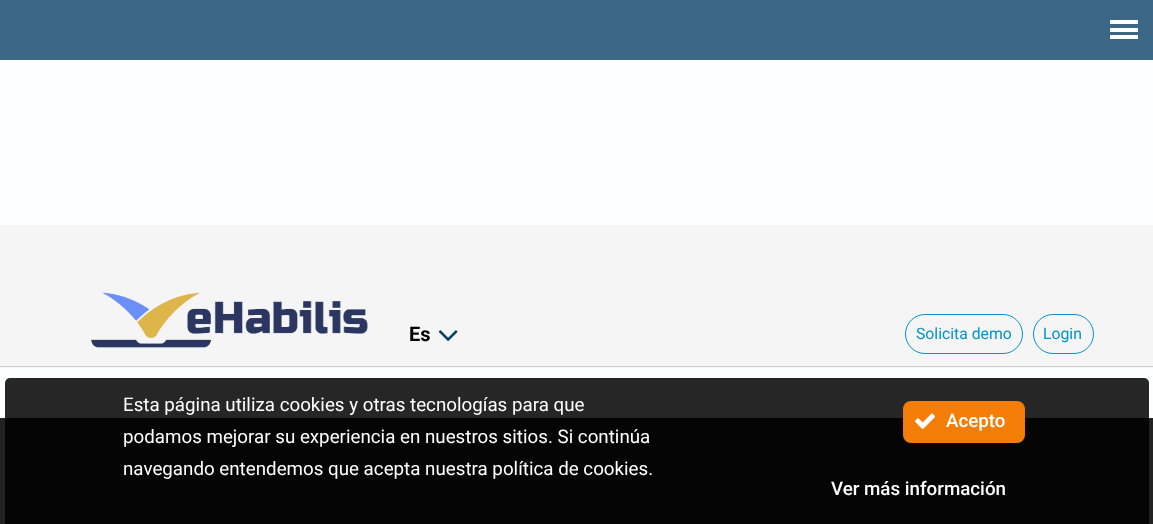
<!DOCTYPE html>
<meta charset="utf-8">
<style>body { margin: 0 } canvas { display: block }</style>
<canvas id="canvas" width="1153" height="524"></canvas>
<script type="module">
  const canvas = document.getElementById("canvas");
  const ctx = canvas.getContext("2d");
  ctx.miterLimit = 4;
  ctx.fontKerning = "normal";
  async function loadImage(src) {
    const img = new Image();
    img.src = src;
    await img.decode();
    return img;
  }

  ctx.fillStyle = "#fcfeff";
  ctx.fillRect(0, 0, 1153, 524);
  ctx.fillStyle = "#3d6885";
  ctx.fillRect(0, 0, 1153, 60);
  ctx.fillStyle = "#ffffff";
  ctx.fillRect(1110, 20, 28, 4);
  ctx.fillRect(1110, 28, 28, 4);
  ctx.fillRect(1110, 35, 28, 4);
  ctx.fillStyle = "#f5f5f5";
  ctx.fillRect(0, 225, 1153, 143);
  ctx.fillStyle = "#cccccc";
  ctx.fillRect(0, 366, 1153, 1);
  ctx.drawImage(await loadImage("img1.png"), 91, 292, 277, 56);
  ctx.drawImage(await loadImage("img2.png"), 439, 330, 19, 11);
  ctx.font = "bold 20px Roboto";
  ctx.fillStyle = "#000000";
  ctx.fillText("Es", 409, 341);
  ctx.beginPath();
  ctx.roundRect(905.5, 314.5, 117, 39, 19.5);
  ctx.strokeStyle = "#0194ca";
  ctx.stroke();
  ctx.font = "15.75px Roboto";
  ctx.fillStyle = "#0194ca";
  ctx.fillText("Solicita demo", 916, 339);
  ctx.beginPath();
  ctx.roundRect(1033.5, 314.5, 60, 39, 19.5);
  ctx.stroke();
  ctx.fillText("Login", 1043, 339);
  ctx.fillStyle = "#222222";
  ctx.fillRect(0, 418, 1153, 106);
  ctx.fillStyle = "rgba(0, 0, 0, 0.85)";
  ctx.beginPath();
  ctx.roundRect(5, 378, 1144, 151, 5);
  ctx.fill();
  ctx.font = "18.75px Roboto";
  ctx.fillStyle = "#ffffff";
  ctx.fillText("Esta página utiliza cookies y otras tecnologías para que", 123, 411);
  ctx.fillText("podamos mejorar su experiencia en nuestros sitios. Si continúa", 123, 443);
  ctx.fillText("navegando entendemos que acepta nuestra política de cookies.", 123, 475);
  ctx.fillStyle = "#f47d08";
  ctx.beginPath();
  ctx.roundRect(903, 401, 122, 42, 8);
  ctx.fill();
  ctx.drawImage(await loadImage("img3.png"), 915, 413, 20, 16);
  ctx.font = "500 18.75px Roboto";
  ctx.fillStyle = "#ffffff";
  ctx.fillText("Acepto", 946, 427);
  ctx.fillText("Ver más información", 831, 495);
</script>
